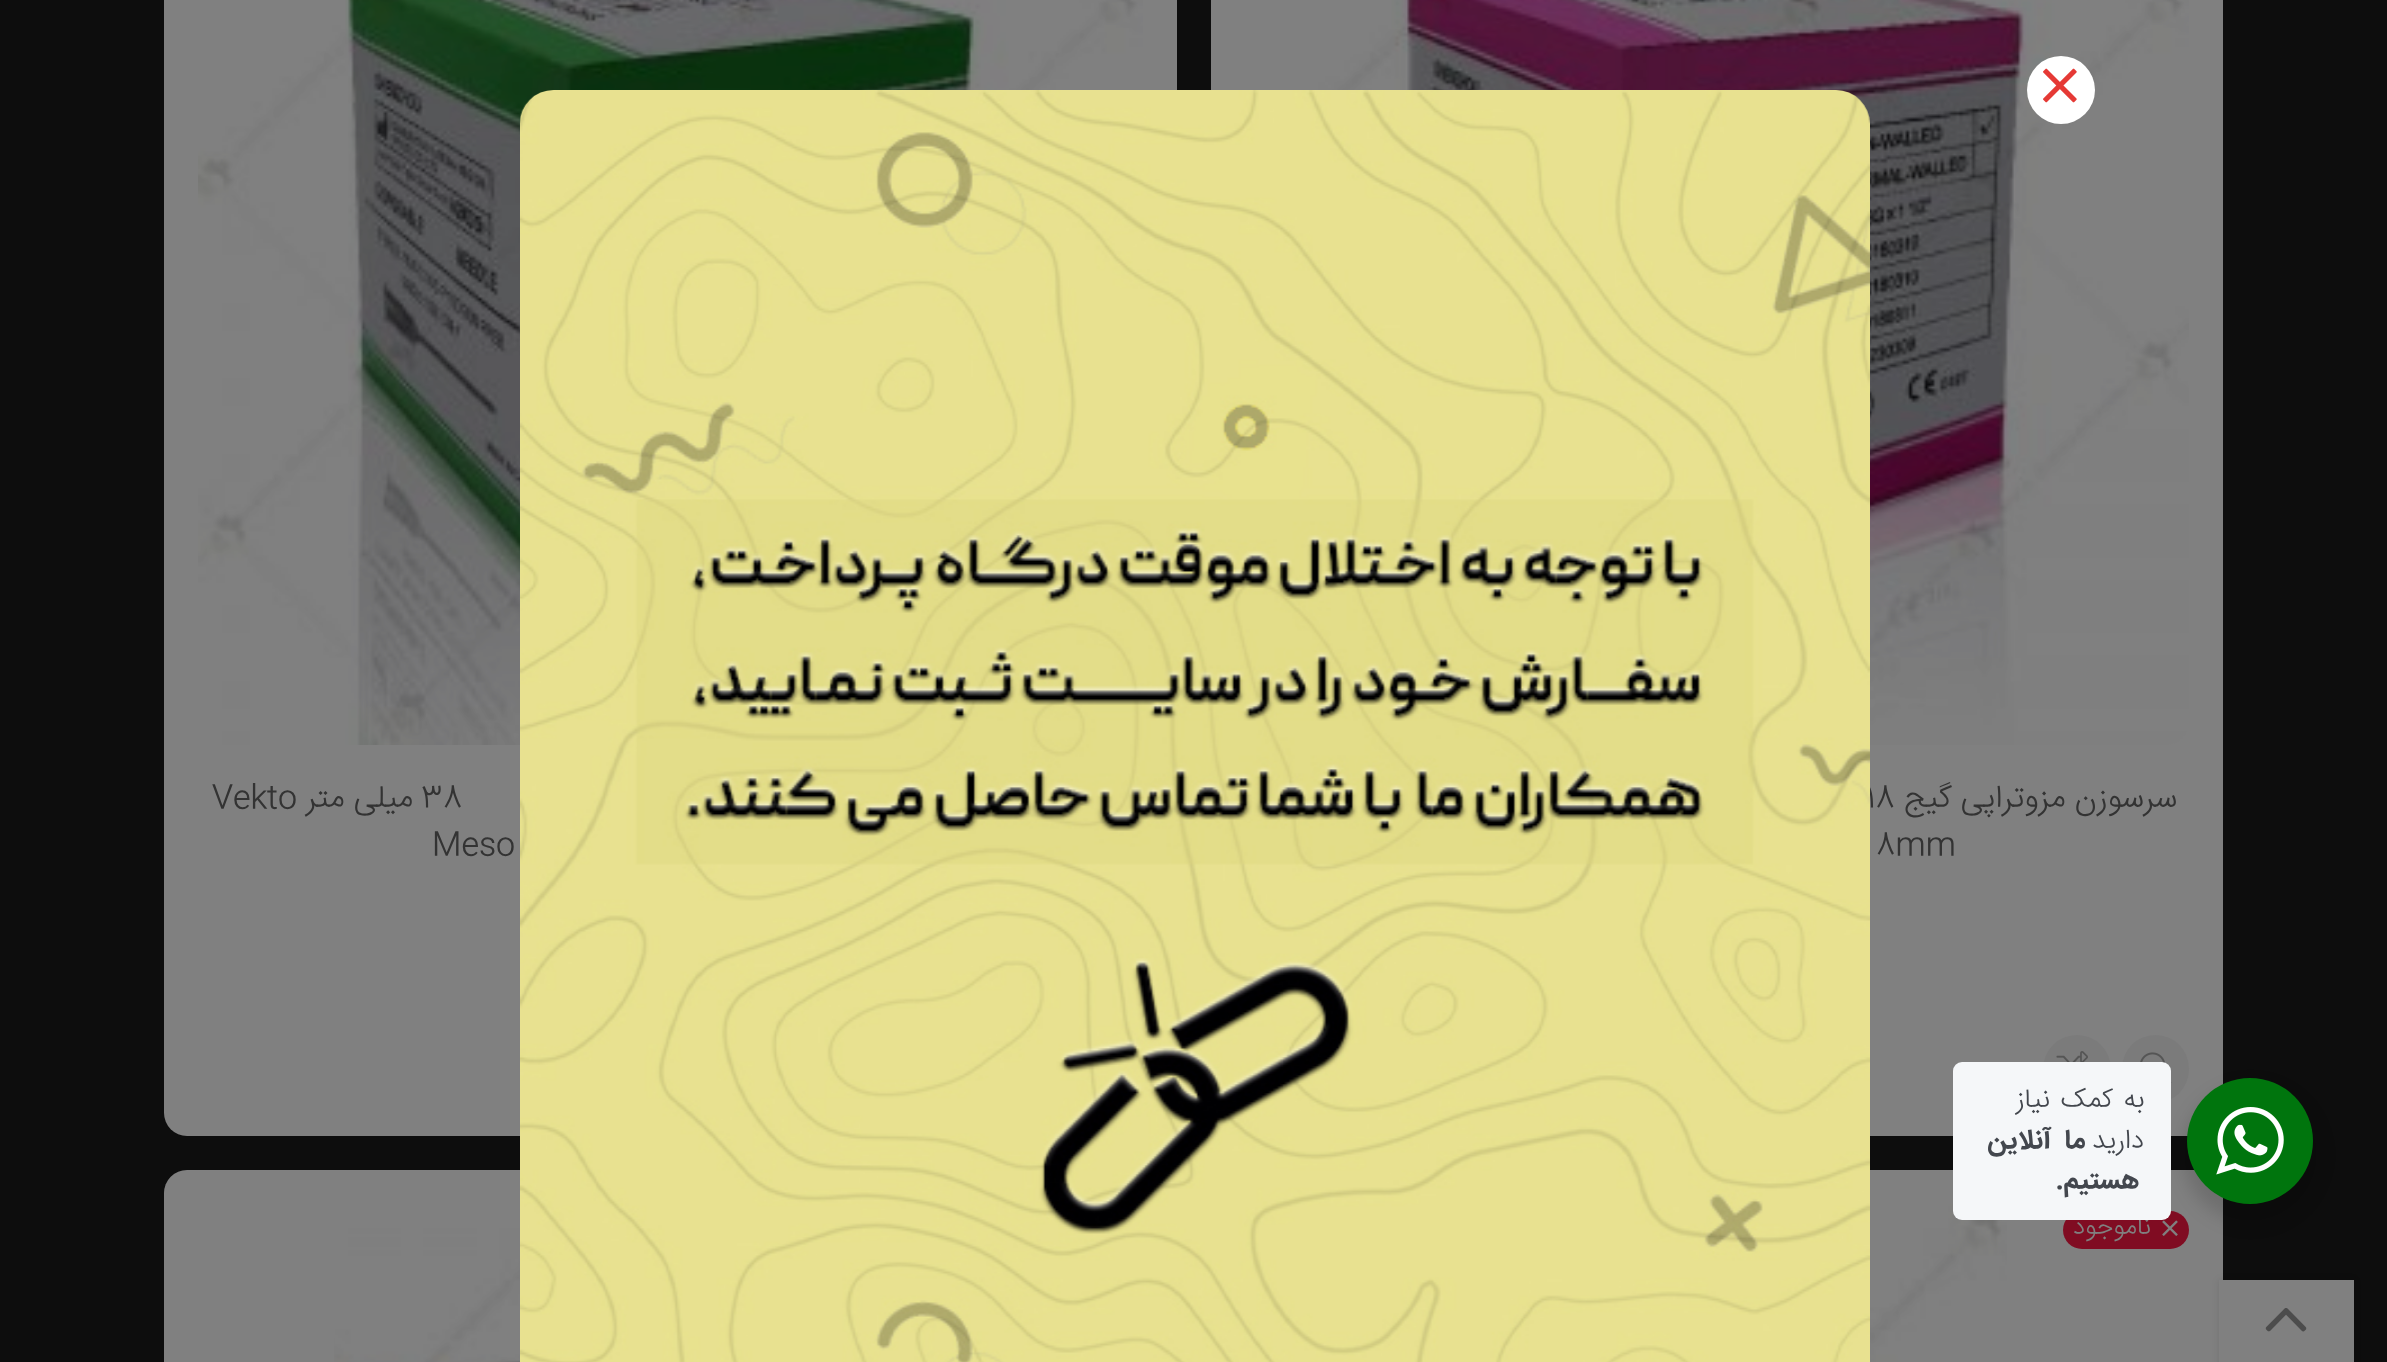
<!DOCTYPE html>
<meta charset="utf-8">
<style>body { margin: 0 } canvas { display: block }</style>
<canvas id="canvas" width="2387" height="1362"></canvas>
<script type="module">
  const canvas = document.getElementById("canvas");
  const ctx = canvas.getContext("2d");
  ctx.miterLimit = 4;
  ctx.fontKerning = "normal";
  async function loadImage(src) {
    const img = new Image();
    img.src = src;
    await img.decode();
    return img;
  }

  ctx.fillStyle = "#0d0d0d";
  ctx.fillRect(0, 0, 2387, 1362);
  ctx.fillStyle = "#808080";
  ctx.fillRect(1211, 0, 1012, 1136);
  ctx.drawImage(await loadImage("img3.png"), 1244, 0, 945, 745);
  ctx.fillStyle = "#ffffff";
  ctx.beginPath();
  ctx.arc(2061, 90, 34, 0, Math.PI * 2);
  ctx.fill();
  ctx.drawImage(await loadImage("img1.png"), 2043, 68, 34, 35);
  ctx.font = "300 31.5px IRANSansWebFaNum";
  ctx.fillStyle = "#333333";
  ctx.fillText("18", 1866, 807);
  ctx.fillStyle = "#808080";
  ctx.beginPath();
  ctx.roundRect(164, -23, 1013, 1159, 23);
  ctx.fill();
  ctx.drawImage(await loadImage("img6.png"), 198, 0, 945, 745);
  ctx.beginPath();
  ctx.roundRect(164, 1170, 1013, 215, 23);
  ctx.fill();
  ctx.drawImage(await loadImage("img2.png"), 520, 90, 1350, 1272);
  ctx.direction = "rtl";
  ctx.fillStyle = "#333333";
  ctx.fillText("سرسوزن مزوتراپی گیج", 2177, 807);
  ctx.direction = "ltr";
  ctx.fillText("8mm", 1876, 854);
  ctx.fillStyle = "#7b7b7b";
  ctx.beginPath();
  ctx.roundRect(2122, 1035, 67, 68, 33.5);
  ctx.fill();
  ctx.drawImage(await loadImage("img4.png"), 2140, 1052, 32, 31);
  ctx.beginPath();
  ctx.arc(2077, 1069, 34, 0, Math.PI * 2);
  ctx.fill();
  ctx.drawImage(await loadImage("img5.png"), 2056, 1051, 32, 11);
  ctx.fillStyle = "#333333";
  ctx.fillText("38", 421, 807);
  ctx.direction = "rtl";
  ctx.fillText("میلی متر", 413, 807);
  ctx.direction = "ltr";
  ctx.fillText("Vekto", 212, 807);
  ctx.fillText("Meso", 432, 854);
  ctx.fillStyle = "#808080";
  ctx.fillRect(1870, 1170, 353, 192);
  ctx.fillStyle = "#800c22";
  ctx.beginPath();
  ctx.roundRect(2063, 1211, 126, 38, 19);
  ctx.fill();
  ctx.drawImage(await loadImage("img7.png"), 2162, 1220, 16, 16);
  ctx.direction = "rtl";
  ctx.font = "300 25px IRANSansWebFaNum";
  ctx.fillStyle = "#808080";
  ctx.fillText("ناموجود", 2151, 1234);
  ctx.drawImage(await loadImage("img8.png"), 1870, 1204, 137, 158);
  ctx.drawImage(await loadImage("img9.png"), 334, 1204, 186, 158);
  ctx.fillStyle = "rgba(0, 0, 0, 0.14)";
  ctx.filter = "blur(9px)";
  ctx.beginPath();
  ctx.roundRect(2183, 1087, 135, 135, 67.5);
  ctx.fill();
  ctx.filter = "none";
  ctx.fillStyle = "#00750d";
  ctx.beginPath();
  ctx.arc(2250, 1141, 63, 0, Math.PI * 2);
  ctx.fill();
  ctx.drawImage(await loadImage("img10.png"), 2216, 1107, 68, 68);
  ctx.fillStyle = "#f5f7f9";
  ctx.beginPath();
  ctx.roundRect(1953, 1062, 218, 158, 9);
  ctx.fill();
  ctx.letterSpacing = "-0.75px";
  ctx.wordSpacing = "4px";
  ctx.font = "300 27px IRANSansWebFaNum";
  ctx.fillStyle = "#43474e";
  ctx.fillText("به کمک نیاز", 2144, 1107);
  ctx.wordSpacing = "0px";
  ctx.fillText("دارید", 2144, 1148);
  ctx.wordSpacing = "7px";
  ctx.font = "bold 27px IRANSansWebFaNum";
  ctx.fillText("ما آنلاین", 2085, 1148);
  ctx.wordSpacing = "0px";
  ctx.fillText("هستیم.", 2139, 1188);
  ctx.fillStyle = "rgba(0, 0, 0, 0.1)";
  ctx.filter = "blur(3.5px)";
  ctx.beginPath();
  ctx.rect(2219, 1280, 135, 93);
  ctx.fill();
  ctx.filter = "none";
  ctx.fillStyle = "#808080";
  ctx.fillRect(2219, 1280, 135, 82);
  ctx.drawImage(await loadImage("img11.png"), 2265, 1308, 42, 24);
</script>
